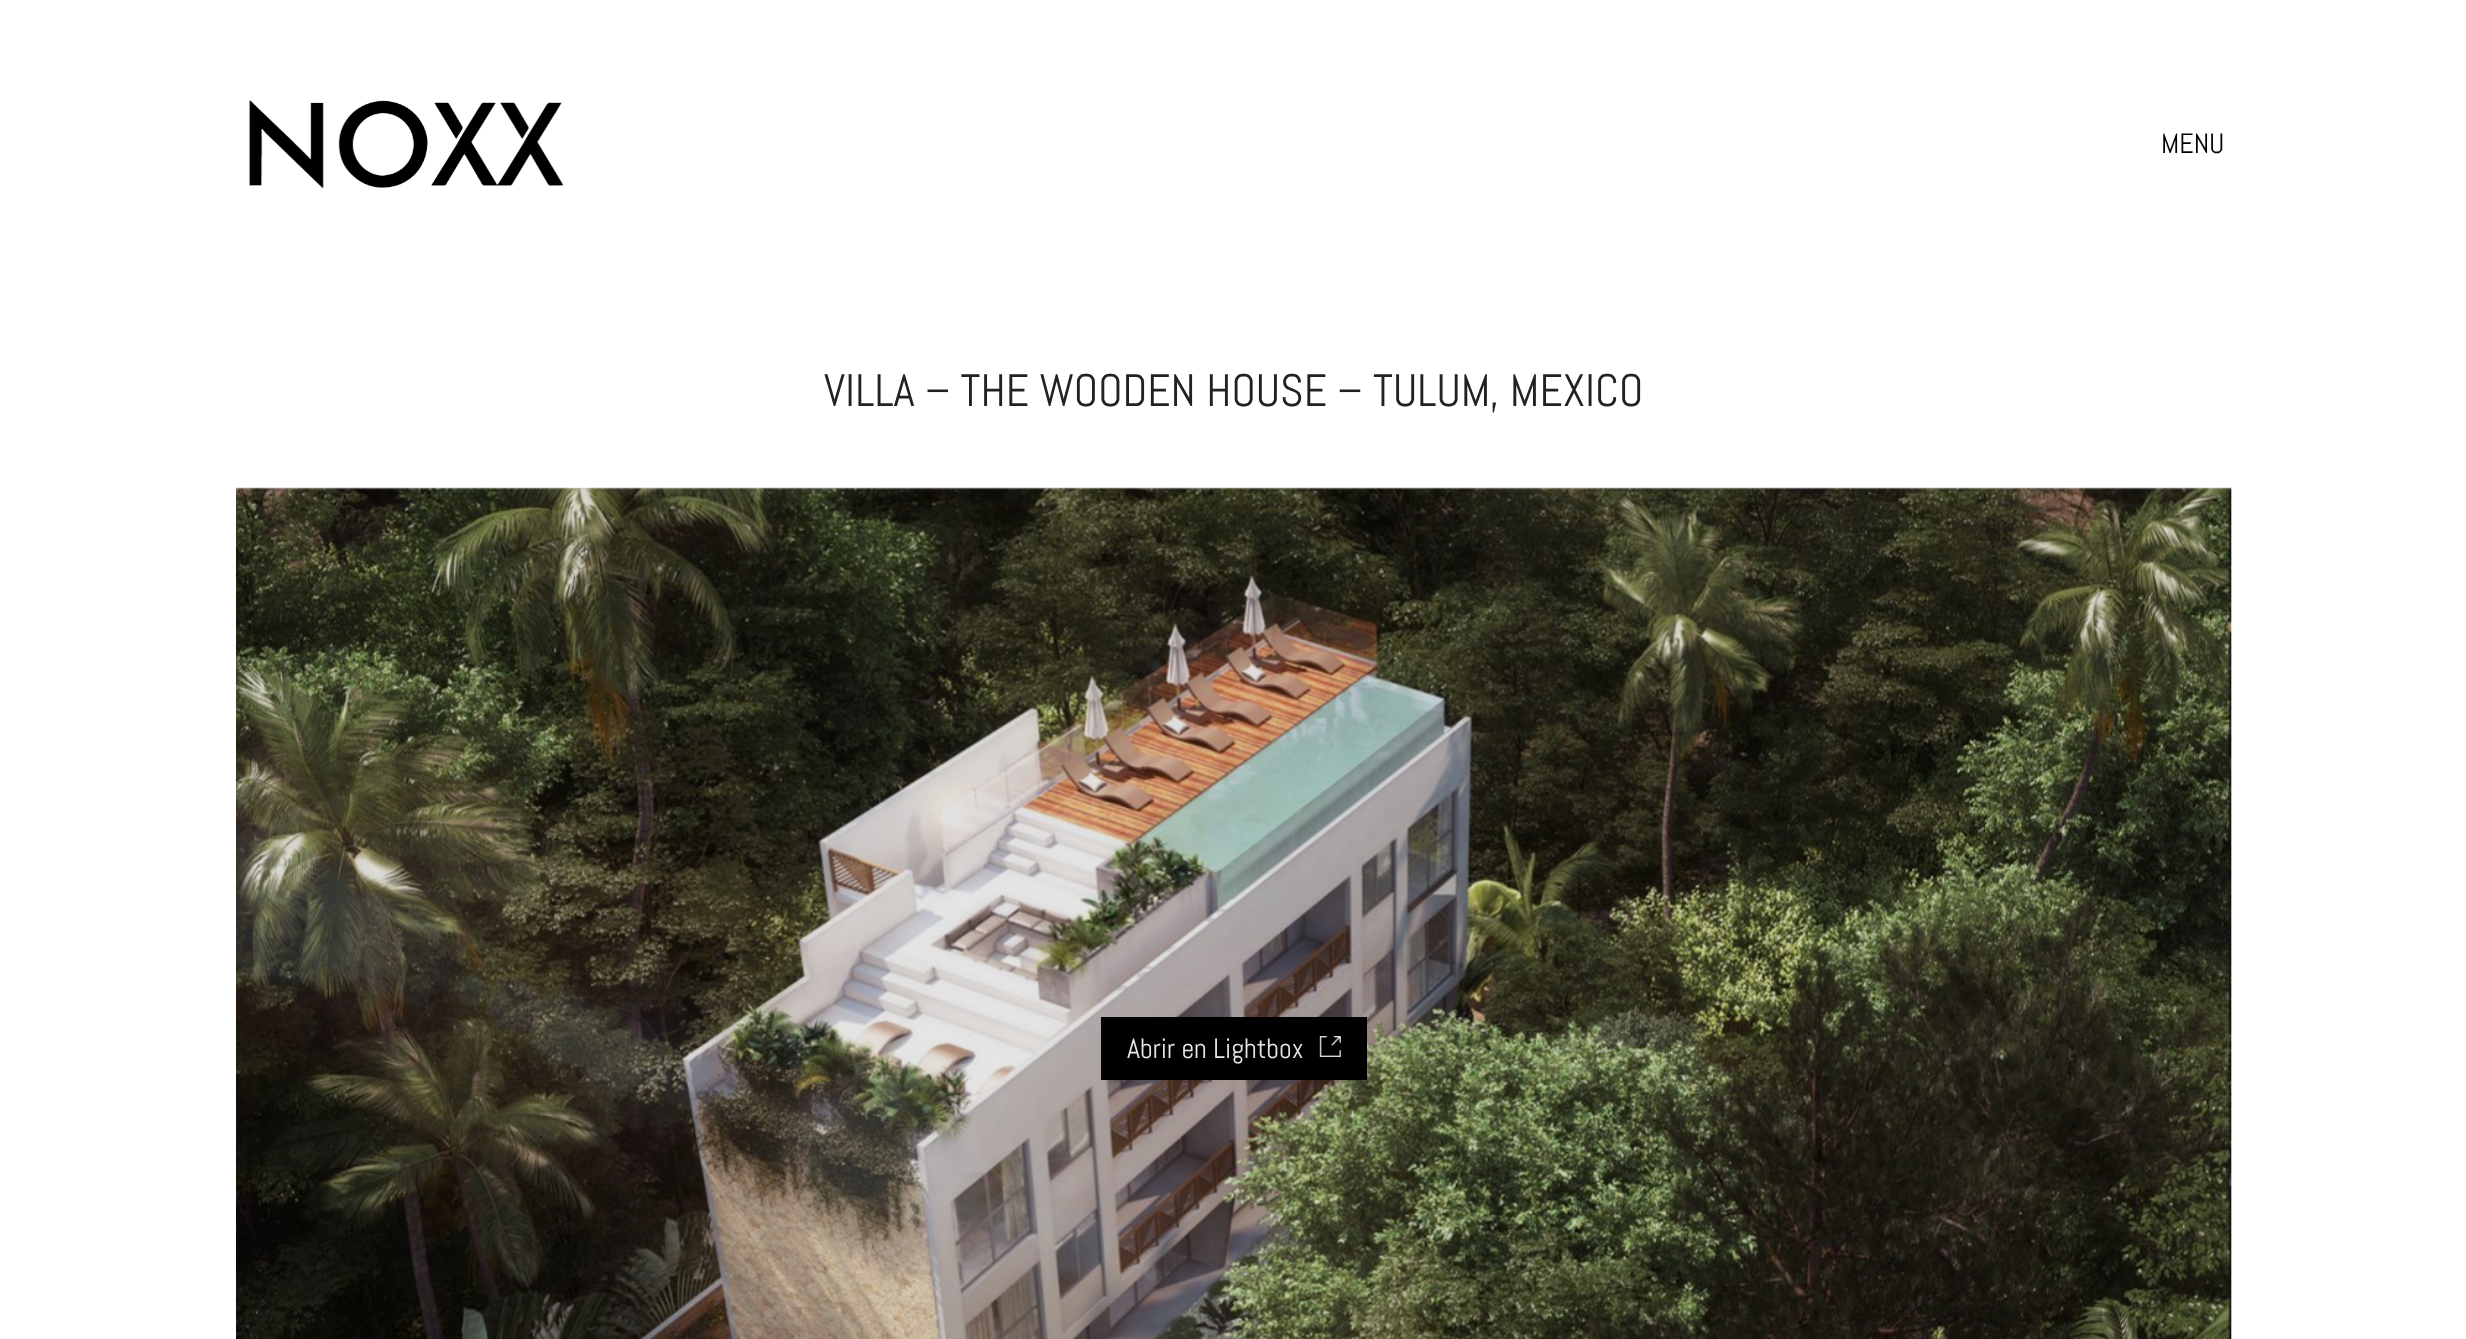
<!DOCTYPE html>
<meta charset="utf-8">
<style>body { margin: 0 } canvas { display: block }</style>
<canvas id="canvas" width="2466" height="1339"></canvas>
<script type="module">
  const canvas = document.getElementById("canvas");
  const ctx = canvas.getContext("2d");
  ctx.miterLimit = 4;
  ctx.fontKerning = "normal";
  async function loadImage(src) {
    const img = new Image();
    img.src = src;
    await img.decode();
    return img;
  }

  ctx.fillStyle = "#ffffff";
  ctx.fillRect(0, 0, 2466, 1339);
  ctx.drawImage(await loadImage("img1.png"), 249, 100, 315, 88);
  ctx.font = "28px Abel";
  ctx.fillStyle = "#000000";
  ctx.fillText("MENU", 2161, 153);
  ctx.font = "45.5px Abel";
  ctx.fillStyle = "#222222";
  ctx.fillText("VILLA – THE WOODEN HOUSE – TULUM, MEXICO", 824, 406);
  ctx.fillStyle = "#d6d6d6";
  ctx.fillRect(236, 488, 1995, 2);
  ctx.drawImage(await loadImage("img2.png"), 236, 487, 1996, 852);
  ctx.fillStyle = "#000000";
  ctx.fillRect(1101, 1017, 266, 63);
  ctx.font = "28px Abel";
  ctx.fillStyle = "#e6e6e6";
  ctx.fillText("Abrir en Lightbox", 1127, 1058);
  ctx.drawImage(await loadImage("img3.png"), 1319, 1036, 22, 21);
</script>
